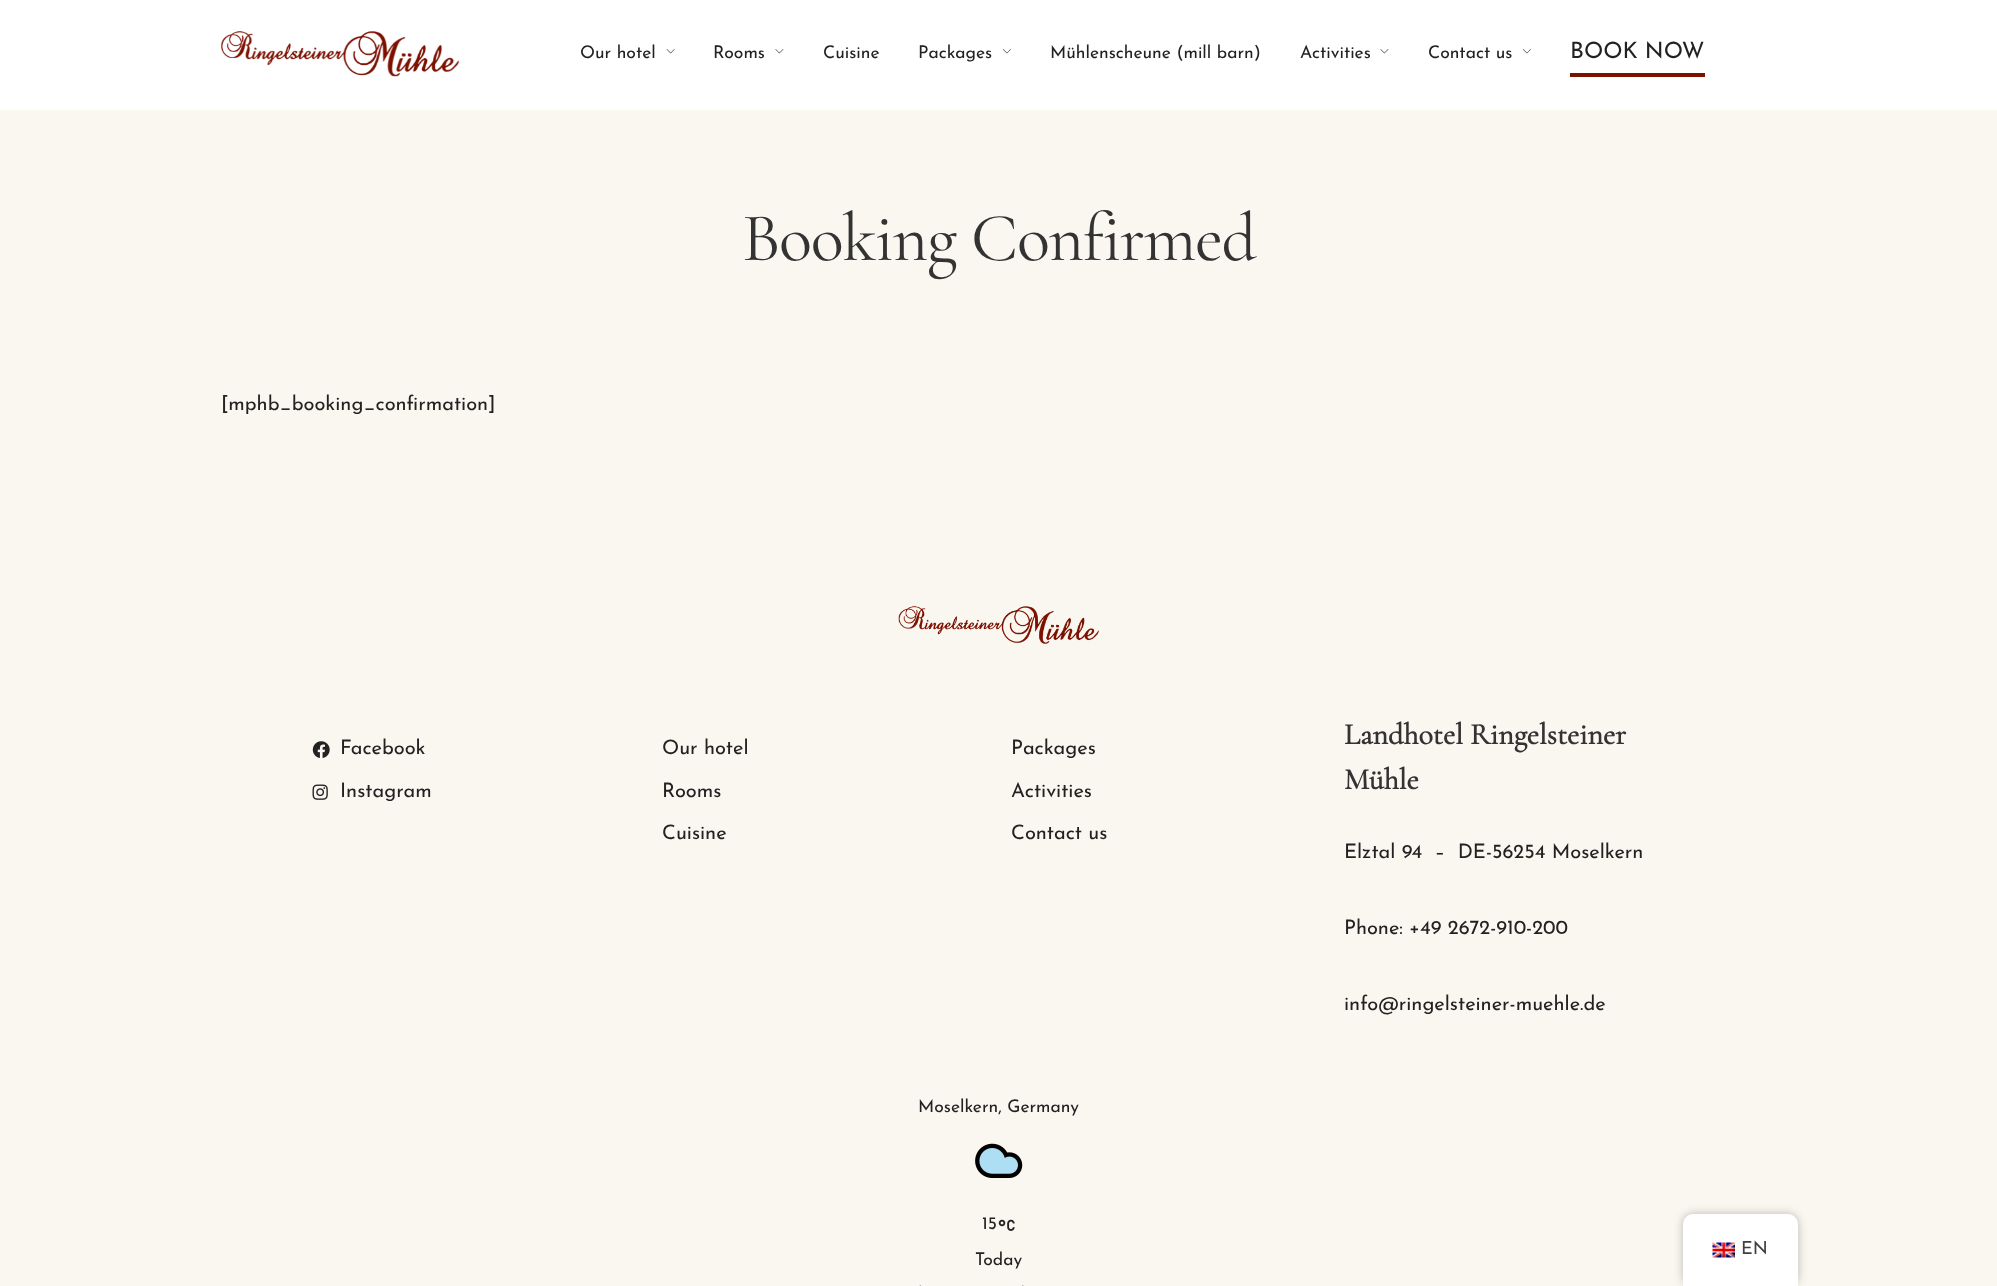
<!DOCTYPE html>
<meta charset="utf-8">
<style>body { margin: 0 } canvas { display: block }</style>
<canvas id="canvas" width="1997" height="1286"></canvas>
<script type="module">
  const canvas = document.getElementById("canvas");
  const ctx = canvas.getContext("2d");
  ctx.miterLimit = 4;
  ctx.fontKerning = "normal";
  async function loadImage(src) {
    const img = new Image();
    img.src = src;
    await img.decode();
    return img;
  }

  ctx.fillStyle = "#faf7f1";
  ctx.fillRect(0, 0, 1997, 1286);
  ctx.fillStyle = "#ffffff";
  ctx.fillRect(0, 0, 1997, 110);
  ctx.drawImage(await loadImage("img1.png"), 220, 31, 239, 46);
  ctx.font = "100 17.5px Josefin Sans";
  ctx.fillStyle = "#222222";
  ctx.fillText("Our hotel", 580, 58);
  ctx.drawImage(await loadImage("img2.png"), 666, 49, 9, 5);
  ctx.fillText("Rooms", 713, 58);
  ctx.drawImage(await loadImage("img3.png"), 775, 49, 9, 5);
  ctx.fillText("Cuisine", 823, 58);
  ctx.fillText("Packages", 918, 58);
  ctx.drawImage(await loadImage("img4.png"), 1002, 49, 9, 5);
  ctx.fillText("Mühlenscheune (mill barn)", 1050, 58);
  ctx.fillText("Activities", 1300, 58);
  ctx.drawImage(await loadImage("img3.png"), 1380, 49, 9, 5);
  ctx.fillText("Contact us", 1428, 58);
  ctx.drawImage(await loadImage("img4.png"), 1522, 49, 9, 5);
  ctx.fillStyle = "#7d1100";
  ctx.fillRect(1570, 73, 135, 4);
  ctx.font = "100 22.5px Josefin Sans";
  ctx.fillStyle = "#222222";
  ctx.fillText("BOOK NOW", 1570, 58);
  ctx.letterSpacing = "-1.25px";
  ctx.font = "300 68.75px Cormorant Garamond";
  ctx.fillStyle = "#333333";
  ctx.fillText("Booking Confirmed", 742, 260);
  ctx.letterSpacing = "0px";
  ctx.font = "100 20px Josefin Sans";
  ctx.fillStyle = "#222222";
  ctx.fillText("[mphb_booking_confirmation]", 221, 410);
  ctx.drawImage(await loadImage("img5.png"), 898, 606, 201, 38);
  ctx.drawImage(await loadImage("img6.png"), 312, 741, 18, 17);
  ctx.fillText("Facebook", 340, 754);
  ctx.drawImage(await loadImage("img7.png"), 312, 784, 16, 16);
  ctx.fillText("Instagram", 340, 797);
  ctx.fillText("Our hotel", 662, 754);
  ctx.fillText("Rooms", 662, 797);
  ctx.fillText("Cuisine", 662, 839);
  ctx.fillText("Packages", 1011, 754);
  ctx.fillText("Activities", 1011, 797);
  ctx.fillText("Contact us", 1011, 839);
  ctx.font = "bold 30px Cormorant Garamond";
  ctx.fillStyle = "#333333";
  ctx.fillText("Landhotel Ringelsteiner", 1344, 744);
  ctx.fillText("Mühle", 1344, 789);
  ctx.font = "100 20px Josefin Sans";
  ctx.fillStyle = "#222222";
  ctx.fillText("Elztal 94  –  DE-56254 Moselkern", 1344, 858);
  ctx.fillText("Phone:", 1344, 934);
  ctx.fillText("+49 2672-910-200", 1409, 934);
  ctx.fillText("info@ringelsteiner-muehle.de", 1344, 1010);
  ctx.font = "100 17.5px Josefin Sans";
  ctx.fillText("Moselkern, Germany", 918, 1112);
  ctx.drawImage(await loadImage("img8.png"), 975, 1143, 48, 35);
  ctx.fillText("15", 982, 1229);
  ctx.drawImage(await loadImage("img9.png"), 998, 1219, 17, 12);
  ctx.fillText("Today", 975, 1265);
  ctx.drawImage(await loadImage("img10.png"), 919, 1285, 2, 1);
  ctx.drawImage(await loadImage("img11.png"), 1022, 1285, 2, 1);
  ctx.fillStyle = "rgba(0, 0, 0, 0.25)";
  ctx.filter = "blur(5px)";
  ctx.beginPath();
  ctx.roundRect(1683, 1214, 115, 72, 10);
  ctx.fill();
  ctx.filter = "none";
  ctx.fillStyle = "#ffffff";
  ctx.beginPath();
  ctx.roundRect(1683, 1214, 115, 72, [10, 10, 0, 0]);
  ctx.fill();
  ctx.drawImage(await loadImage("img12.png"), 1712, 1242, 23, 16);
  ctx.font = "100 18px Josefin Sans";
  ctx.fillStyle = "#404040";
  ctx.fillText("EN", 1741, 1254);
</script>
